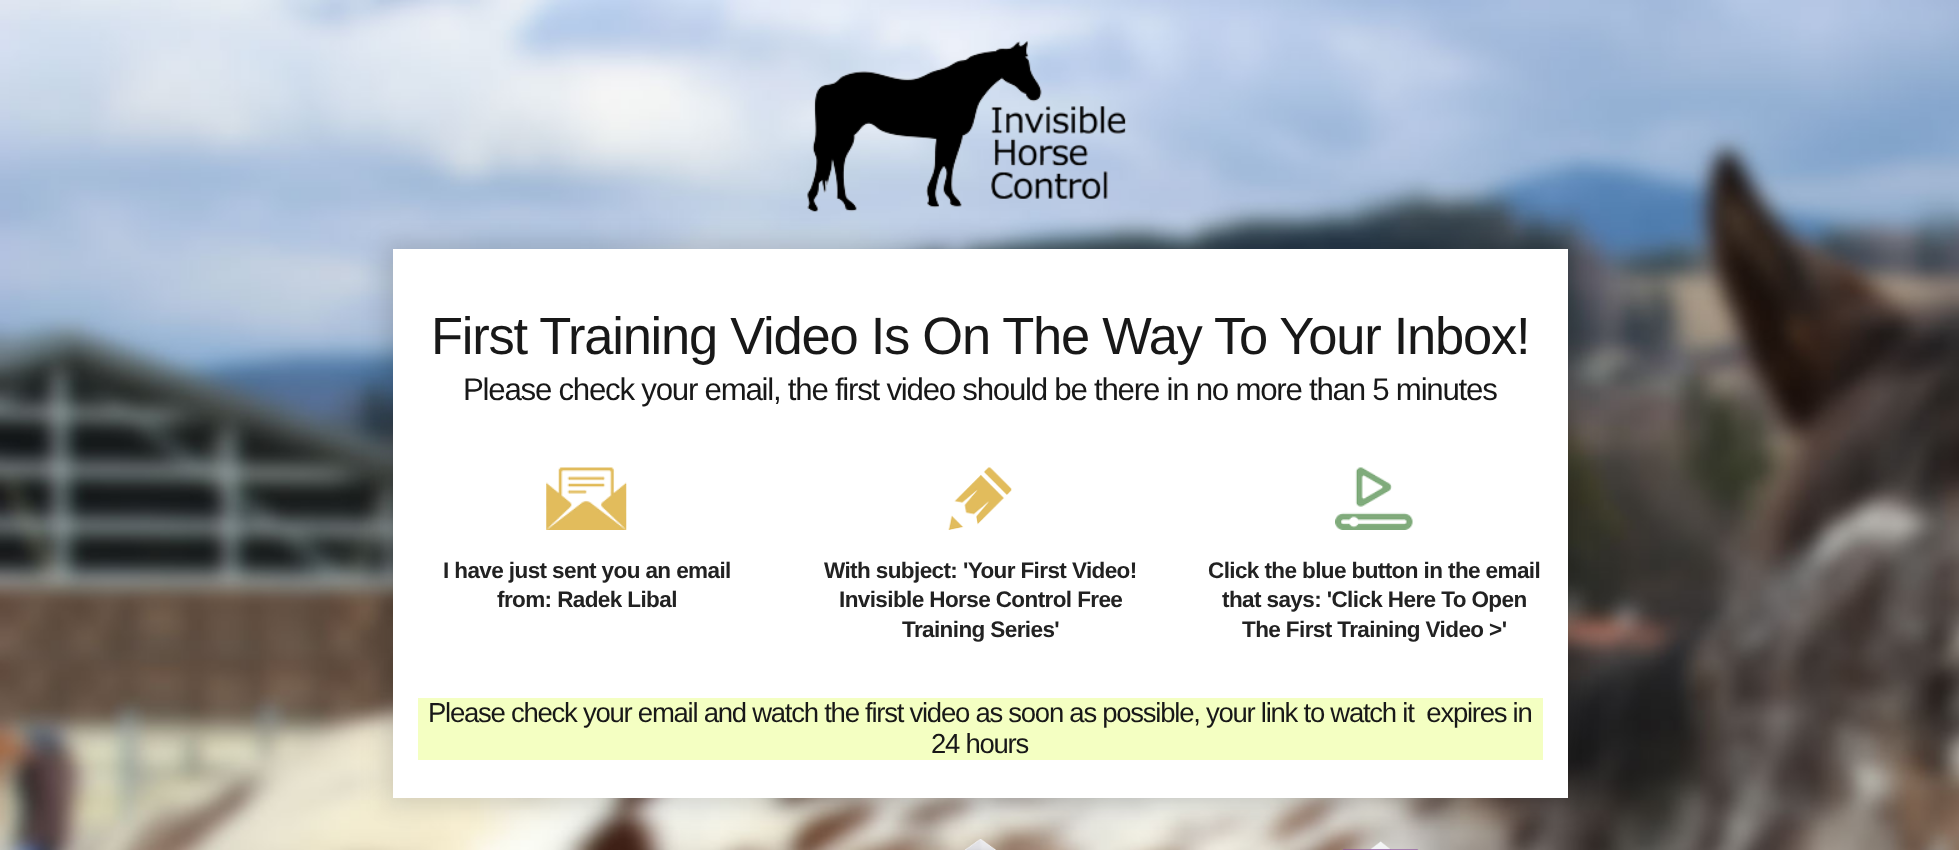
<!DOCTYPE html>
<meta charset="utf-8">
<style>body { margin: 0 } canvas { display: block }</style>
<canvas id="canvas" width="1959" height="850"></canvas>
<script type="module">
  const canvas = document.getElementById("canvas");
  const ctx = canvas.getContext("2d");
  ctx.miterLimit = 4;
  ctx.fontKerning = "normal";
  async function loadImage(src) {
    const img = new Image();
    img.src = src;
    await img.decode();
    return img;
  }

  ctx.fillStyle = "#ffffff";
  ctx.fillRect(0, 0, 1959, 850);
  ctx.drawImage(await loadImage("img1.png"), 0, 0, 1959, 850);
  ctx.drawImage(await loadImage("img2.png"), 807, 41, 319, 171);
  ctx.fillStyle = "rgba(0, 0, 0, 0.15)";
  ctx.filter = "blur(12.5px)";
  ctx.beginPath();
  ctx.rect(386, 243, 1188, 561);
  ctx.fill();
  ctx.filter = "none";
  ctx.fillStyle = "#ffffff";
  ctx.fillRect(393, 249, 1175, 549);
  ctx.letterSpacing = "-1.25px";
  ctx.font = "52.5px Liberation Sans";
  ctx.fillStyle = "#181818";
  ctx.fillText("First Training Video Is On The Way To Your Inbox!", 431, 354);
  ctx.font = "31.25px Liberation Sans";
  ctx.fillText("Please check your email, the first video should be there in no more than 5 minutes", 463, 400);
  ctx.drawImage(await loadImage("img3.png"), 546, 467, 81, 63);
  ctx.letterSpacing = "-0.6px";
  ctx.font = "bold 22.5px Liberation Sans";
  ctx.fillStyle = "#222222";
  ctx.fillText("I have just sent you an email", 443, 578);
  ctx.fillText("from: Radek Libal", 497, 607);
  ctx.drawImage(await loadImage("img4.png"), 948, 467, 64, 63);
  ctx.fillText("With subject: 'Your First Video!", 824, 578);
  ctx.fillText("Invisible Horse Control Free", 839, 607);
  ctx.fillText("Training Series'", 902, 637);
  ctx.drawImage(await loadImage("img5.png"), 1335, 467, 78, 63);
  ctx.fillText("Click the blue button in the email", 1208, 578);
  ctx.fillText("that says: 'Click Here To Open", 1222, 607);
  ctx.fillText("The First Training Video >'", 1242, 637);
  ctx.fillStyle = "#f4ffc2";
  ctx.fillRect(418, 698, 1125, 62);
  ctx.letterSpacing = "-1.25px";
  ctx.font = "27.5px Liberation Sans";
  ctx.fillStyle = "#181818";
  ctx.fillText("Please check your email and watch the first video as soon as possible, your link to watch it  expires in", 428, 722);
  ctx.fillText("24 hours", 931, 753);
  ctx.drawImage(await loadImage("img6.png"), 965, 839, 31, 11);
  ctx.drawImage(await loadImage("img7.png"), 1342, 841, 77, 9);
</script>
